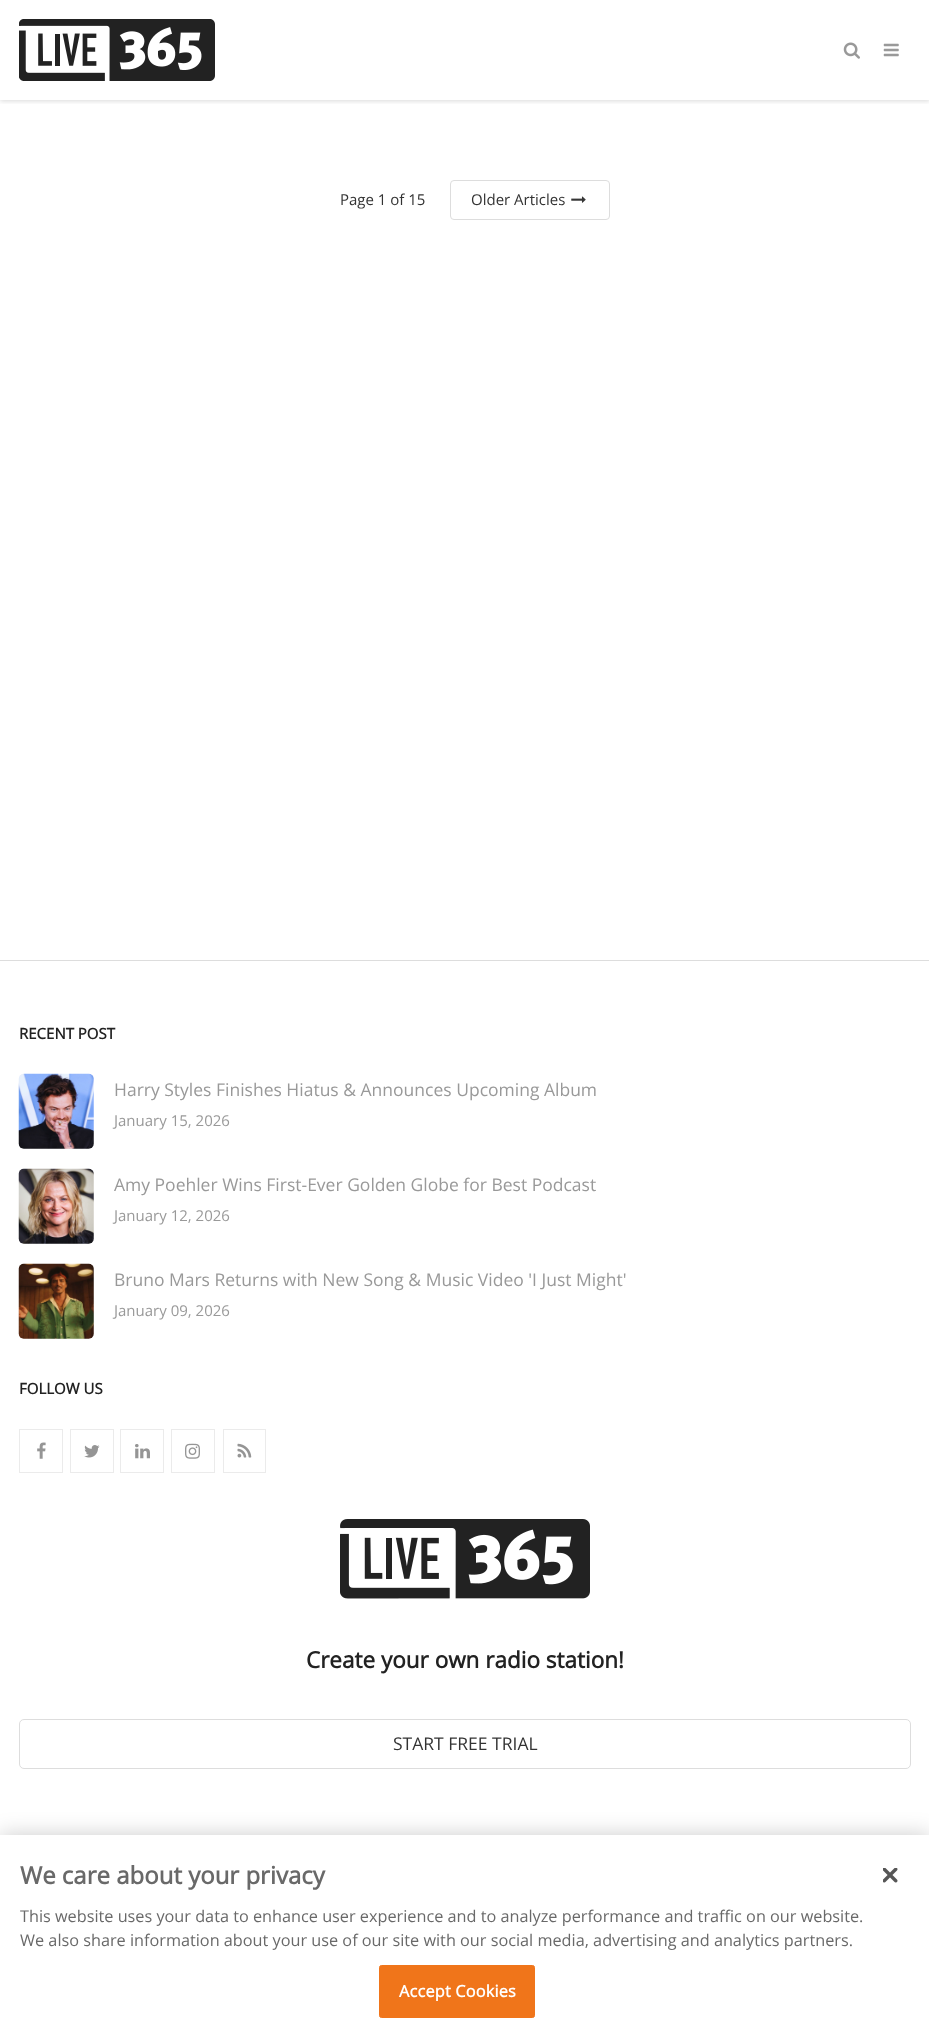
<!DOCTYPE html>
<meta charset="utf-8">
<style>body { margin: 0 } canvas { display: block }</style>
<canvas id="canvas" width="929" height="2029"></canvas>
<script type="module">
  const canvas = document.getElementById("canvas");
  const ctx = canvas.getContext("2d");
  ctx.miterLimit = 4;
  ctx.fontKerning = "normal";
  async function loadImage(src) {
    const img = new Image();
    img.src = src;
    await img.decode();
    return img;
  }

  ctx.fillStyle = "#ffffff";
  ctx.fillRect(0, 0, 929, 2029);
  ctx.save();
  ctx.beginPath();
  ctx.rect(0, 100, 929, 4);
  ctx.clip();
  ctx.fillStyle = "rgba(0, 0, 0, 0.15)";
  ctx.filter = "blur(2.5px)";
  ctx.beginPath();
  ctx.rect(0, 1, 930, 100);
  ctx.fill();
  ctx.filter = "none";
  ctx.restore();
  ctx.drawImage(await loadImage("img1.png"), 19, 19, 196, 62);
  ctx.drawImage(await loadImage("img2.png"), 843, 42, 17, 17);
  ctx.drawImage(await loadImage("img3.png"), 883, 43, 16, 14);
  ctx.font = "15px Open Sans";
  ctx.fillStyle = "#333333";
  ctx.fillText("Page 1 of 15", 340, 205);
  ctx.beginPath();
  ctx.roundRect(450.5, 180.5, 159, 39, 3.5);
  ctx.strokeStyle = "#dddddd";
  ctx.stroke();
  ctx.fillText("Older Articles", 471, 205);
  ctx.drawImage(await loadImage("img4.png"), 571, 196, 15, 7);
  ctx.fillStyle = "#dddddd";
  ctx.fillRect(0, 960, 929, 1);
  ctx.font = "bold 15px Open Sans";
  ctx.fillStyle = "#222222";
  ctx.fillText("RECENT POST", 19, 1039);
  ctx.drawImage(await loadImage("img5.png"), 18, 1073, 76, 76);
  ctx.font = "17.5px Open Sans";
  ctx.fillStyle = "#999999";
  ctx.fillText("Harry Styles Finishes Hiatus & Announces Upcoming Album", 114, 1096);
  ctx.font = "15px Open Sans";
  ctx.fillText("January 15, 2026", 114, 1126);
  ctx.drawImage(await loadImage("img6.png"), 18, 1168, 76, 76);
  ctx.font = "17.5px Open Sans";
  ctx.fillText("Amy Poehler Wins First-Ever Golden Globe for Best Podcast", 114, 1191);
  ctx.font = "15px Open Sans";
  ctx.fillText("January 12, 2026", 114, 1221);
  ctx.drawImage(await loadImage("img7.png"), 18, 1263, 76, 76);
  ctx.font = "17.5px Open Sans";
  ctx.fillText("Bruno Mars Returns with New Song & Music Video 'I Just Might'", 114, 1286);
  ctx.font = "15px Open Sans";
  ctx.fillText("January 09, 2026", 114, 1316);
  ctx.font = "bold 15px Open Sans";
  ctx.fillStyle = "#222222";
  ctx.fillText("FOLLOW US", 19, 1394);
  ctx.strokeStyle = "#ebebeb";
  ctx.strokeRect(19.5, 1429.5, 43, 43);
  ctx.drawImage(await loadImage("img8.png"), 37, 1442, 9, 17);
  ctx.strokeRect(70.5, 1429.5, 43, 43);
  ctx.drawImage(await loadImage("img9.png"), 84, 1445, 16, 13);
  ctx.strokeRect(120.5, 1429.5, 43, 43);
  ctx.drawImage(await loadImage("img10.png"), 135, 1444, 15, 15);
  ctx.strokeRect(171.5, 1429.5, 43, 43);
  ctx.drawImage(await loadImage("img11.png"), 185, 1443, 15, 16);
  ctx.strokeRect(223.5, 1429.5, 42, 43);
  ctx.drawImage(await loadImage("img12.png"), 237, 1443, 15, 15);
  ctx.drawImage(await loadImage("img13.png"), 340, 1519, 250, 80);
  ctx.font = "bold 22.5px Open Sans";
  ctx.fillText("Create your own radio station!", 306, 1668);
  ctx.beginPath();
  ctx.roundRect(19.5, 1719.5, 891, 49, 4.5);
  ctx.strokeStyle = "#dddddd";
  ctx.stroke();
  ctx.font = "17.5px Open Sans";
  ctx.fillStyle = "#333333";
  ctx.fillText("START FREE TRIAL", 393, 1750);
  ctx.fillStyle = "rgba(0, 0, 0, 0.2)";
  ctx.filter = "blur(11px)";
  ctx.beginPath();
  ctx.rect(0, 1835, 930, 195);
  ctx.fill();
  ctx.filter = "none";
  ctx.fillStyle = "#ffffff";
  ctx.fillRect(0, 1835, 929, 194);
  ctx.font = "bold 24px Open Sans";
  ctx.fillStyle = "#696969";
  ctx.fillText("We care about your privacy", 20, 1884);
  ctx.font = "16.25px Open Sans";
  ctx.fillText("This website uses your data to enhance user experience and to analyze performance and traffic on our website.", 20, 1922);
  ctx.fillText("We also share information about your use of our site with our social media, advertising and analytics partners.", 20, 1946);
  ctx.fillStyle = "#f0751a";
  ctx.beginPath();
  ctx.roundRect(379.5, 1965.5, 155, 52, 2);
  ctx.fill();
  ctx.strokeStyle = "#f0751a";
  ctx.stroke();
  ctx.letterSpacing = "0.2px";
  ctx.font = "bold 16.25px Open Sans";
  ctx.fillStyle = "#ffffff";
  ctx.fillText("Accept Cookies", 399, 1997);
  ctx.drawImage(await loadImage("img14.png"), 883, 1868, 15, 15);
</script>
